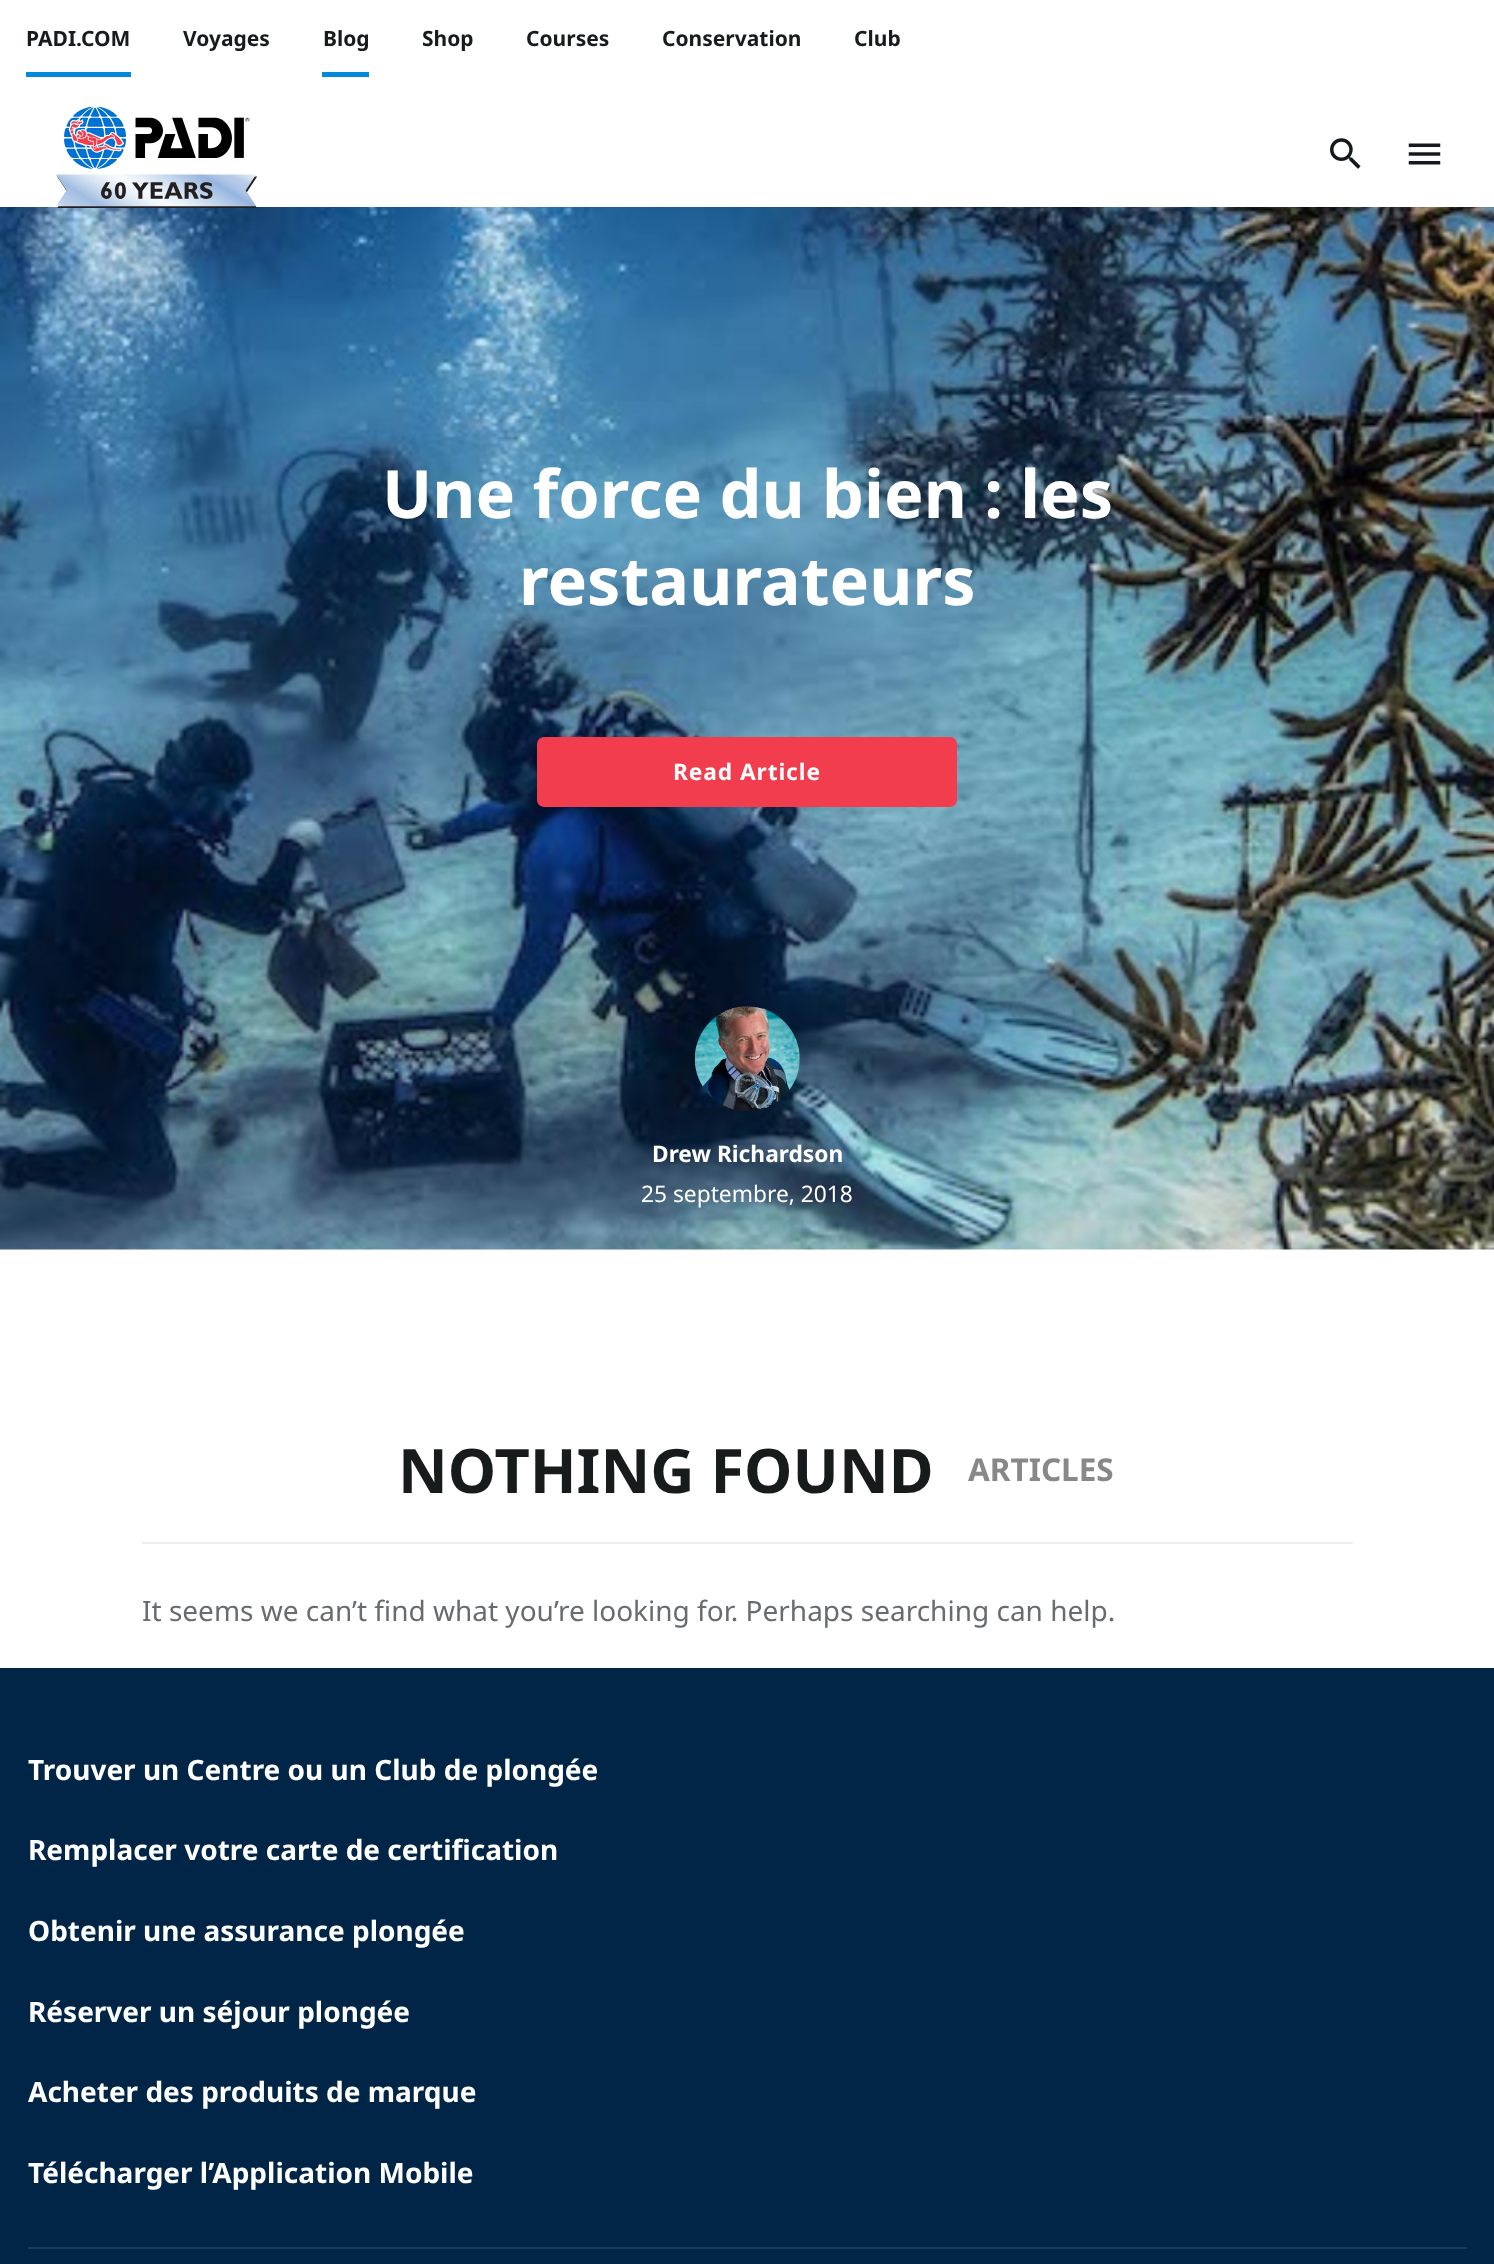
<!DOCTYPE html>
<meta charset="utf-8">
<style>body { margin: 0 } canvas { display: block }</style>
<canvas id="canvas" width="1494" height="2264"></canvas>
<script type="module">
  const canvas = document.getElementById("canvas");
  const ctx = canvas.getContext("2d");
  ctx.miterLimit = 4;
  ctx.fontKerning = "normal";
  async function loadImage(src) {
    const img = new Image();
    img.src = src;
    await img.decode();
    return img;
  }

  ctx.fillStyle = "#ffffff";
  ctx.fillRect(0, 0, 1494, 2264);
  ctx.fillStyle = "#0088dc";
  ctx.fillRect(26, 72, 105, 5);
  ctx.font = "bold 21px Noto Sans";
  ctx.fillStyle = "#181b1c";
  ctx.fillText("PADI.COM", 26, 46);
  ctx.fillText("Voyages", 183, 46);
  ctx.fillStyle = "#0088dc";
  ctx.fillRect(322, 72, 47, 5);
  ctx.fillStyle = "#181b1c";
  ctx.fillText("Blog", 323, 46);
  ctx.fillText("Shop", 422, 46);
  ctx.fillText("Courses", 526, 46);
  ctx.fillText("Conservation", 662, 46);
  ctx.fillText("Club", 854, 46);
  ctx.drawImage(await loadImage("img4.png"), 0, 207, 1494, 1043);
  ctx.drawImage(await loadImage("img1.png"), 56, 107, 201, 101);
  ctx.drawImage(await loadImage("img2.png"), 1330, 138, 31, 31);
  ctx.drawImage(await loadImage("img3.png"), 1408, 143, 33, 22);
  ctx.font = "bold 66.5px Noto Sans";
  ctx.fillStyle = "#ffffff";
  ctx.fillText("Une force du bien : les", 382, 518);
  ctx.fillText("restaurateurs", 519, 605);
  ctx.fillStyle = "#f23d4e";
  ctx.beginPath();
  ctx.roundRect(537, 737, 420, 70, 7);
  ctx.fill();
  ctx.letterSpacing = "0.9px";
  ctx.font = "bold 22.75px Noto Sans";
  ctx.fillStyle = "#ffffff";
  ctx.fillText("Read Article", 673, 780);
  ctx.drawImage(await loadImage("img5.png"), 694, 1006, 106, 105);
  ctx.letterSpacing = "0px";
  ctx.fillText("Drew Richardson", 652, 1162);
  ctx.font = "22.75px Noto Sans";
  ctx.fillText("25 septembre, 2018", 641, 1202);
  ctx.fillStyle = "#eeeeee";
  ctx.fillRect(142, 1542, 1211, 2);
  ctx.font = "bold 61.25px Noto Sans";
  ctx.fillStyle = "#181b1c";
  ctx.fillText("NOTHING FOUND", 398, 1493);
  ctx.font = "bold 31.5px Noto Sans";
  ctx.fillStyle = "#888888";
  ctx.fillText("ARTICLES", 968, 1481);
  ctx.font = "28px Noto Sans";
  ctx.fillStyle = "#696c6e";
  ctx.fillText("It seems we can’t find what you’re looking for. Perhaps searching can help.", 142, 1621);
  ctx.fillStyle = "#002547";
  ctx.fillRect(0, 1668, 1494, 596);
  ctx.fillStyle = "#1a3b59";
  ctx.fillRect(28, 2247, 1439, 2);
  ctx.font = "bold 28px Noto Sans";
  ctx.fillStyle = "#ffffff";
  ctx.fillText("Trouver un Centre ou un Club de plongée", 28, 1780);
  ctx.fillText("Remplacer votre carte de certification", 28, 1860);
  ctx.fillText("Obtenir une assurance plongée", 28, 1941);
  ctx.fillText("Réserver un séjour plongée", 28, 2022);
  ctx.fillText("Acheter des produits de marque", 28, 2102);
  ctx.fillText("Télécharger l’Application Mobile", 28, 2183);
</script>
